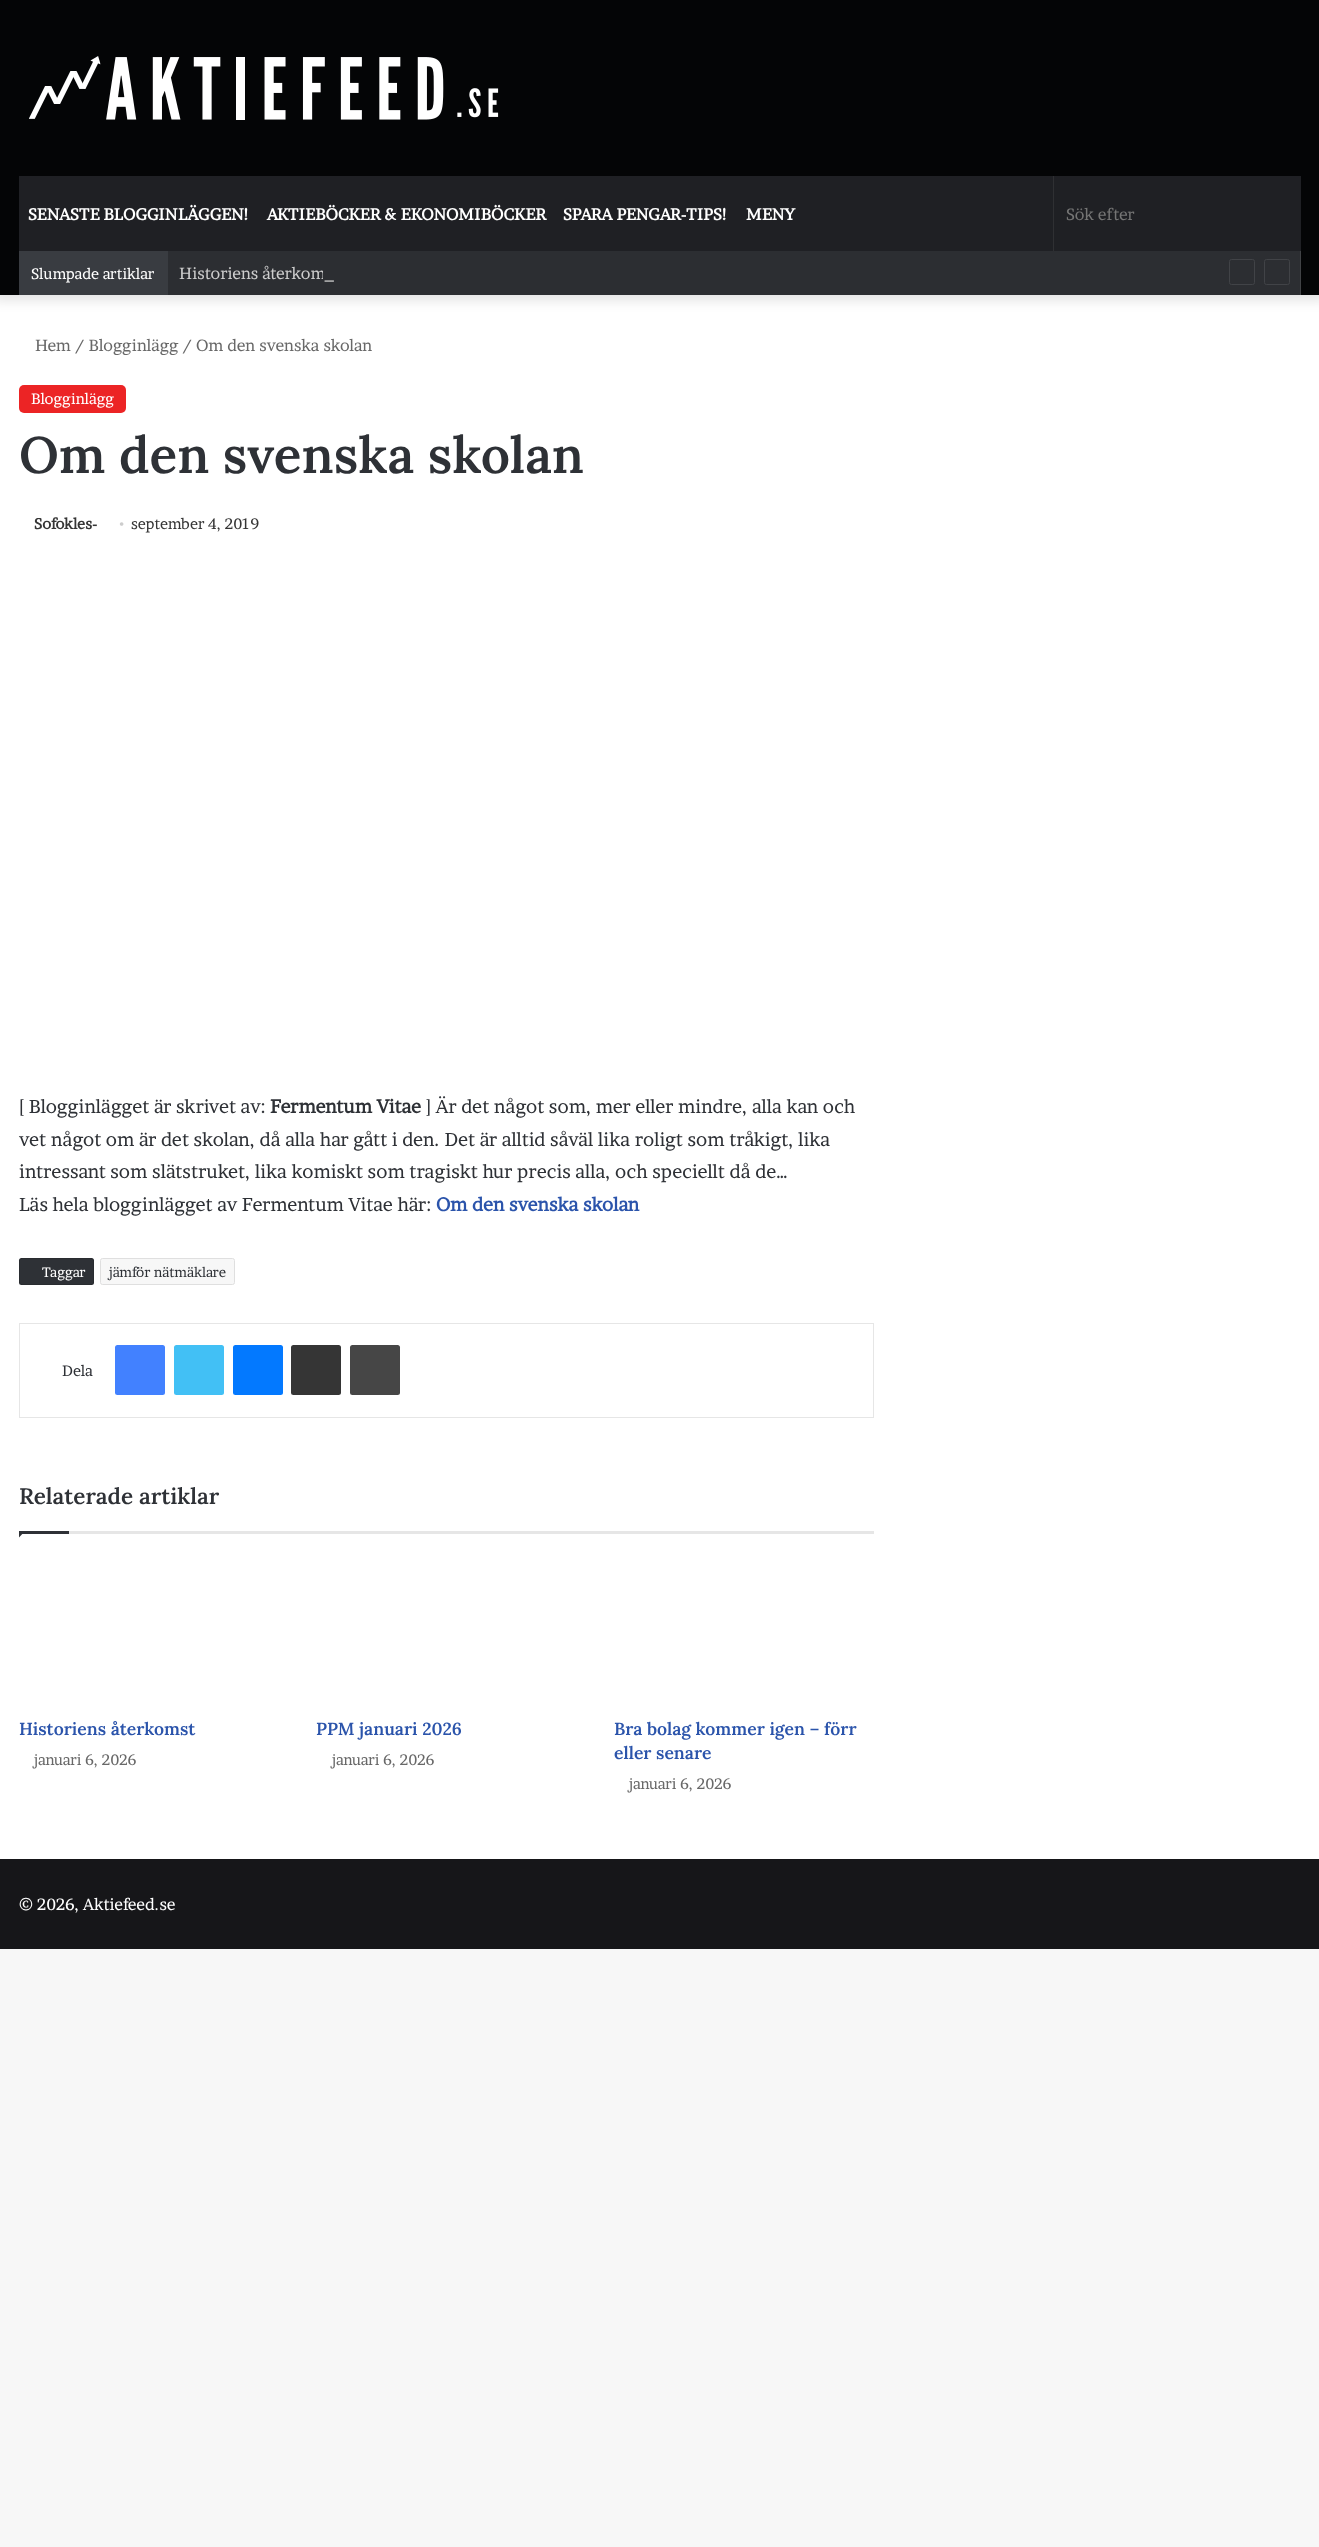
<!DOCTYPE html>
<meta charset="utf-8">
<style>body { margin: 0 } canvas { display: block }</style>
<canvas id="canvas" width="1319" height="2547"></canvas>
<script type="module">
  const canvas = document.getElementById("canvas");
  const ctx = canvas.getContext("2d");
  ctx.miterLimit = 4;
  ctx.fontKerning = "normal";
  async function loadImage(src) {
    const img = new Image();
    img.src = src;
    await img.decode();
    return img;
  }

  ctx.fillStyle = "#f7f7f7";
  ctx.fillRect(0, 0, 1319, 2547);
  ctx.fillStyle = "#ffffff";
  ctx.fillRect(0, 295, 1319, 1564);
  ctx.fillStyle = "rgba(0, 0, 0, 0.1)";
  ctx.filter = "blur(6px)";
  ctx.beginPath();
  ctx.rect(-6, -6, 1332, 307);
  ctx.fill();
  ctx.filter = "none";
  ctx.fillStyle = "#040506";
  ctx.fillRect(0, 0, 1319, 295);
  ctx.drawImage(await loadImage("img1.png"), 29, 56, 470, 64);
  ctx.fillStyle = "#2c2e32";
  ctx.fillRect(168, 251, 1133, 44);
  ctx.fillStyle = "rgba(255, 255, 255, 0.1)";
  ctx.beginPath();
  ctx.moveTo(1301, 250);
  ctx.lineTo(1301, 295);
  ctx.lineTo(1300, 295);
  ctx.lineTo(1300, 251);
  ctx.closePath();
  ctx.fill();
  ctx.fillStyle = "#1f2024";
  ctx.fillRect(19, 176, 1282, 75);
  ctx.font = "bold 16.25px Brawler";
  ctx.fillStyle = "#ffffff";
  ctx.fillText("SENASTE BLOGGINLÄGGEN!", 28, 220);
  ctx.fillText("AKTIEBÖCKER & EKONOMIBÖCKER", 267, 220);
  ctx.fillText("SPARA PENGAR-TIPS!", 563, 220);
  ctx.fillText("MENY", 746, 220);
  ctx.fillStyle = "#2f3033";
  ctx.fillRect(1053, 176, 1, 75);
  ctx.font = "16.25px Brawler";
  ctx.fillStyle = "#757575";
  ctx.fillText("Sök efter", 1066, 220);
  ctx.fillStyle = "#393c41";
  ctx.fillRect(19, 251, 149, 44);
  ctx.font = "15px Brawler";
  ctx.fillStyle = "#ffffff";
  ctx.fillText("Slumpade artiklar", 31, 279);
  ctx.font = "16.25px Brawler";
  ctx.fillStyle = "#cdcdcd";
  ctx.fillText("Historiens återkom", 179, 279);
  ctx.fillStyle = "#2c2e32";
  ctx.fillRect(323, 270, 3, 9);
  ctx.fillStyle = "#cdcdcd";
  ctx.fillText("_", 323, 279);
  ctx.beginPath();
  ctx.roundRect(1229.5, 259.5, 25, 25, 2);
  ctx.strokeStyle = "#414347";
  ctx.stroke();
  ctx.beginPath();
  ctx.roundRect(1264.5, 259.5, 25, 25, 2);
  ctx.stroke();
  ctx.fillStyle = "#686868";
  ctx.fillText("Hem / Blogginlägg / Om den svenska skolan", 35, 351);
  ctx.fillStyle = "#ec2425";
  ctx.beginPath();
  ctx.roundRect(19, 385, 107, 28, 5);
  ctx.fill();
  ctx.font = "15px Brawler";
  ctx.fillStyle = "#ffffff";
  ctx.fillText("Blogginlägg", 31, 404);
  ctx.font = "600 51.25px Lora";
  ctx.fillStyle = "#2e3136";
  ctx.fillText("Om den svenska skolan", 19, 473);
  ctx.font = "bold 15px Brawler";
  ctx.fillStyle = "#353535";
  ctx.fillText("Sofokles-", 34, 529);
  ctx.font = "15px Liberation Serif";
  ctx.fillStyle = "#cdcdcd";
  ctx.fillText("•", 119, 529);
  ctx.font = "15px Brawler";
  ctx.fillStyle = "#353535";
  ctx.fillText("september 4, 2019", 131, 529);
  ctx.font = "18.75px Brawler";
  ctx.fillStyle = "#2e3136";
  ctx.fillText("[ Blogginlägget är skrivet av:", 19, 1113);
  ctx.font = "bold 18.75px Brawler";
  ctx.fillText("Fermentum Vitae", 270, 1113);
  ctx.font = "18.75px Brawler";
  ctx.fillText("] Är det något som, mer eller mindre, alla kan och", 426, 1113);
  ctx.fillText("vet något om är det skolan, då alla har gått i den. Det är alltid såväl lika roligt som tråkigt, lika", 19, 1146);
  ctx.fillText("intressant som slätstruket, lika komiskt som tragiskt hur precis alla, och speciellt då de…", 19, 1178);
  ctx.fillText("Läs hela blogginlägget av Fermentum Vitae här:", 19, 1211);
  ctx.font = "bold 18.75px Brawler";
  ctx.fillStyle = "#2b54ab";
  ctx.fillText("Om den svenska skolan", 436, 1211);
  ctx.fillStyle = "#2e3136";
  ctx.beginPath();
  ctx.roundRect(19, 1258, 75, 27, 2.5);
  ctx.fill();
  ctx.beginPath();
  ctx.roundRect(19.5, 1258.5, 74, 26, 2);
  ctx.strokeStyle = "rgba(3, 3, 3, 0.1)";
  ctx.stroke();
  ctx.font = "13.75px Brawler";
  ctx.fillStyle = "#ffffff";
  ctx.fillText("Taggar", 42, 1277);
  ctx.fillStyle = "#f7f7f7";
  ctx.beginPath();
  ctx.roundRect(100.5, 1258.5, 134, 26, 2);
  ctx.fill();
  ctx.strokeStyle = "#dfdfdf";
  ctx.stroke();
  ctx.fillStyle = "#2e3136";
  ctx.fillText("jämför nätmäklare", 109, 1277);
  ctx.strokeStyle = "#e6e6e6";
  ctx.strokeRect(19.5, 1323.5, 854, 94);
  ctx.font = "15px Brawler";
  ctx.fillText("Dela", 62, 1376);
  ctx.fillStyle = "#4281ff";
  ctx.beginPath();
  ctx.roundRect(115, 1345, 50, 50, 2.5);
  ctx.fill();
  ctx.fillStyle = "#42c0f5";
  ctx.beginPath();
  ctx.roundRect(174, 1345, 50, 50, 2.5);
  ctx.fill();
  ctx.fillStyle = "#0379ff";
  ctx.beginPath();
  ctx.roundRect(233, 1345, 50, 50, 2.5);
  ctx.fill();
  ctx.fillStyle = "#353535";
  ctx.beginPath();
  ctx.roundRect(291, 1345, 50, 50, 2.5);
  ctx.fill();
  ctx.fillStyle = "#464646";
  ctx.beginPath();
  ctx.roundRect(350, 1345, 50, 50, 2.5);
  ctx.fill();
  ctx.fillStyle = "#e6e6e6";
  ctx.fillRect(69, 1531, 805, 3);
  ctx.font = "600 22.5px Lora";
  ctx.fillStyle = "#2e3136";
  ctx.fillText("Relaterade artiklar", 19, 1504);
  ctx.beginPath();
  ctx.moveTo(19, 1531);
  ctx.lineTo(25, 1531);
  ctx.lineTo(19, 1537.5);
  ctx.closePath();
  ctx.fill();
  ctx.fillRect(19, 1531, 50, 3);
  ctx.font = "600 17.5px Lora";
  ctx.fillStyle = "#2b54ab";
  ctx.fillText("Historiens återkomst", 19, 1735);
  ctx.font = "15px Brawler";
  ctx.fillStyle = "#686868";
  ctx.fillText("januari 6, 2026", 34, 1765);
  ctx.font = "600 17.5px Lora";
  ctx.fillStyle = "#2b54ab";
  ctx.fillText("PPM januari 2026", 316, 1735);
  ctx.font = "15px Brawler";
  ctx.fillStyle = "#686868";
  ctx.fillText("januari 6, 2026", 332, 1765);
  ctx.font = "600 17.5px Lora";
  ctx.fillStyle = "#2b54ab";
  ctx.fillText("Bra bolag kommer igen – förr", 614, 1735);
  ctx.fillText("eller senare", 614, 1759);
  ctx.font = "15px Brawler";
  ctx.fillStyle = "#686868";
  ctx.fillText("januari 6, 2026", 629, 1789);
  ctx.fillStyle = "#161619";
  ctx.fillRect(0, 1859, 1319, 90);
  ctx.font = "16.25px Brawler";
  ctx.fillStyle = "#ffffff";
  ctx.fillText("© 2026, Aktiefeed.se", 19, 1910);
</script>
